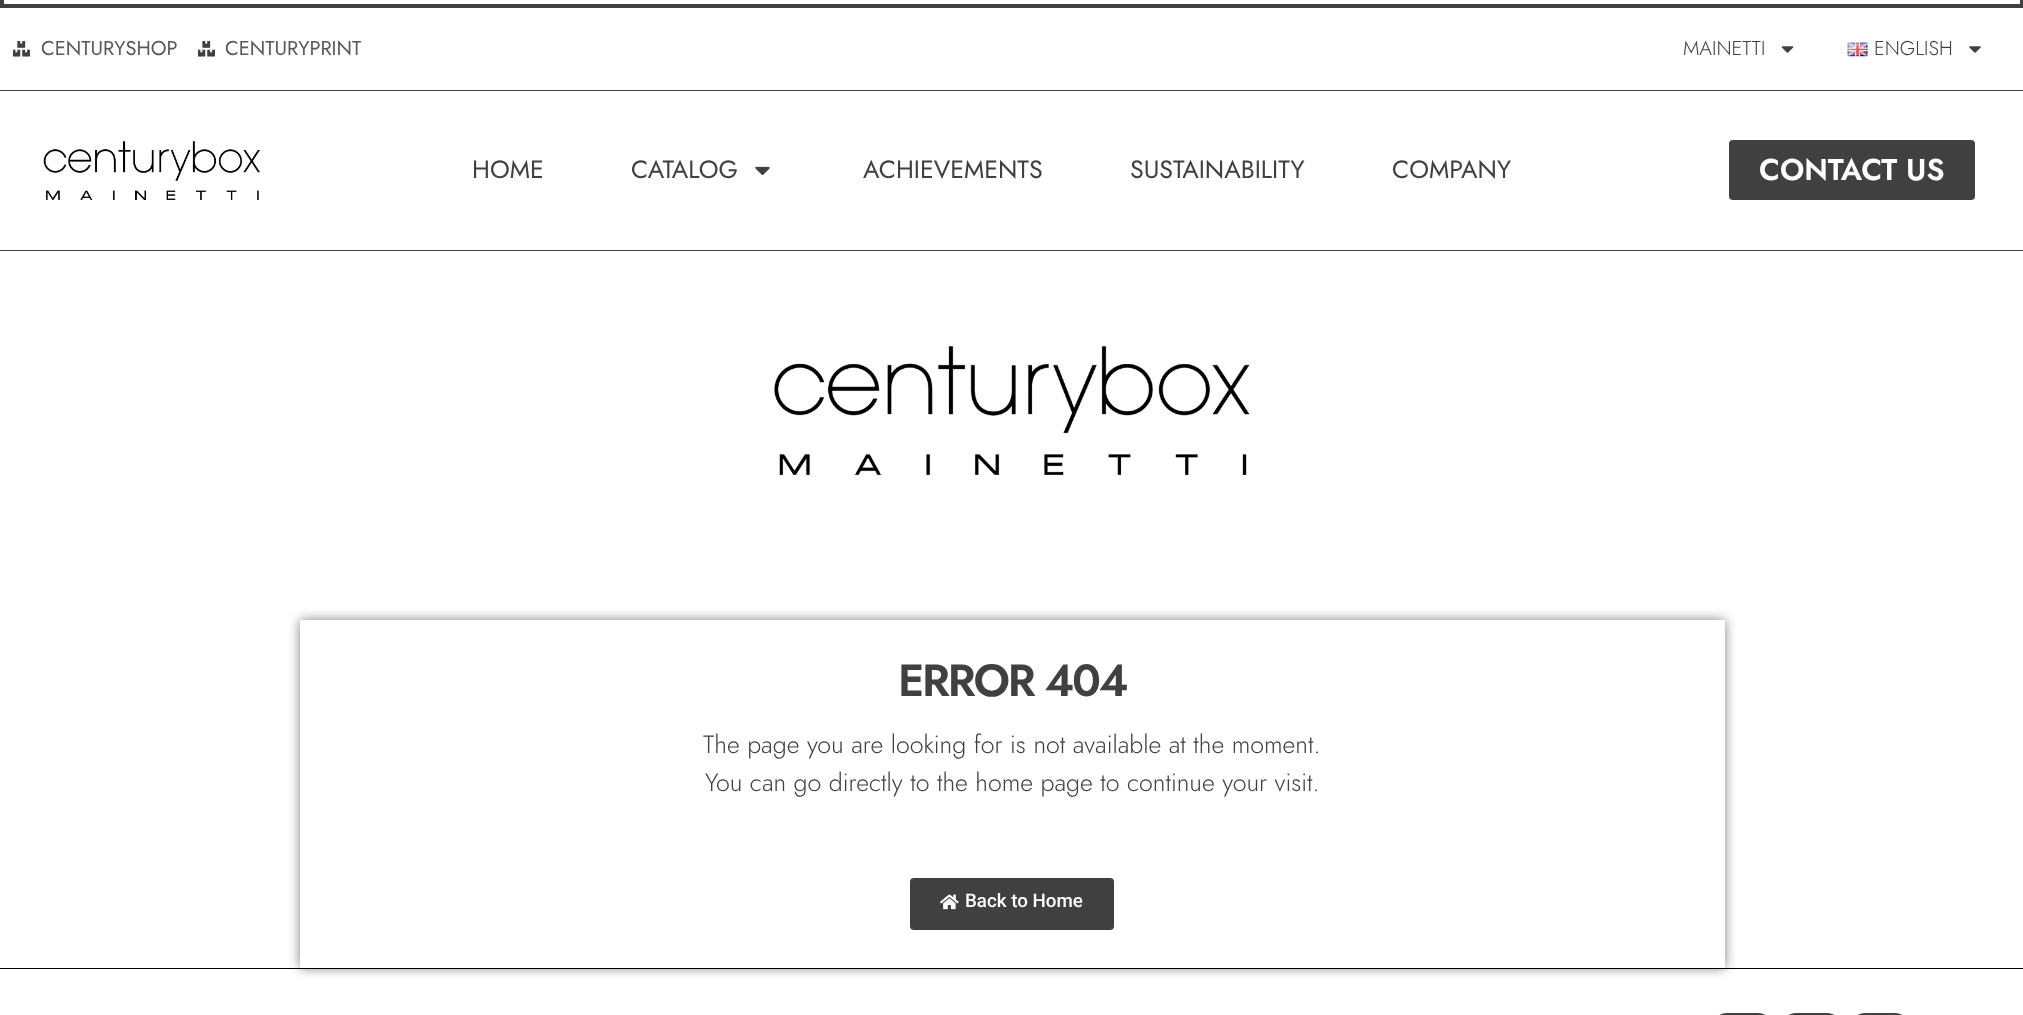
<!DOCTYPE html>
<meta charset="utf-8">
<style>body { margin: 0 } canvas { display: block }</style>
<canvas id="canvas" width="2023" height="1015"></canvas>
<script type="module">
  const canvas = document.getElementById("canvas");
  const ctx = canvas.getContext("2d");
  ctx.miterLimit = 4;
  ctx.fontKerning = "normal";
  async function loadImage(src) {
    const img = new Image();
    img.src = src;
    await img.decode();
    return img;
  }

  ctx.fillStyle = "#ffffff";
  ctx.fillRect(0, 0, 2023, 1015);
  ctx.strokeStyle = "#404040";
  ctx.lineWidth = 4;
  ctx.strokeRect(2, -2, 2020, 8);
  ctx.drawImage(await loadImage("img1.png"), 13, 41, 17, 16);
  ctx.font = "20px Jost";
  ctx.fillStyle = "#54595f";
  ctx.fillText("CENTURYSHOP", 41, 55);
  ctx.drawImage(await loadImage("img1.png"), 198, 41, 17, 16);
  ctx.fillText("CENTURYPRINT", 225, 55);
  ctx.font = "300 20px Jost";
  ctx.fillStyle = "#404040";
  ctx.fillText("MAINETTI", 1683, 55);
  ctx.drawImage(await loadImage("img2.png"), 1781, 46, 13, 7);
  ctx.drawImage(await loadImage("img3.png"), 1847, 42, 21, 15);
  ctx.fillText("ENGLISH", 1874, 55);
  ctx.drawImage(await loadImage("img4.png"), 1969, 46, 12, 7);
  ctx.fillRect(0, 90, 2023, 1);
  ctx.fillRect(0, 250, 2023, 1);
  ctx.drawImage(await loadImage("img5.png"), 43, 141, 218, 59);
  ctx.font = "25px Jost";
  ctx.fillText("HOME", 472, 178);
  ctx.fillText("CATALOG", 631, 178);
  ctx.drawImage(await loadImage("img6.png"), 755, 166, 15, 10);
  ctx.fillText("ACHIEVEMENTS", 863, 178);
  ctx.fillText("SUSTAINABILITY", 1130, 178);
  ctx.fillText("COMPANY", 1392, 178);
  ctx.beginPath();
  ctx.roundRect(1729, 140, 246, 60, 4);
  ctx.fill();
  ctx.font = "600 30px Jost";
  ctx.fillStyle = "#ffffff";
  ctx.fillText("CONTACT US", 1759, 180);
  ctx.drawImage(await loadImage("img7.png"), 774, 346, 476, 129);
  ctx.save();
  ctx.beginPath();
  ctx.moveTo(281, 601);
  ctx.lineTo(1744, 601);
  ctx.lineTo(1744, 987);
  ctx.lineTo(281, 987);
  ctx.closePath();
  ctx.moveTo(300, 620);
  ctx.lineTo(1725, 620);
  ctx.lineTo(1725, 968);
  ctx.lineTo(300, 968);
  ctx.closePath();
  ctx.clip("evenodd");
  ctx.fillStyle = "rgba(0, 0, 0, 0.5)";
  ctx.filter = "blur(6px)";
  ctx.beginPath();
  ctx.rect(300, 620, 1425, 348);
  ctx.fill();
  ctx.filter = "none";
  ctx.restore();
  ctx.letterSpacing = "-2.25px";
  ctx.font = "600 45px Jost";
  ctx.fillStyle = "#404040";
  ctx.fillText("ERROR 404", 898, 696);
  ctx.letterSpacing = "0px";
  ctx.font = "300 25px Jost";
  ctx.fillText("The page you are looking for is not available at the moment.", 703, 753);
  ctx.fillText("You can go directly to the home page to continue your visit.", 705, 791);
  ctx.beginPath();
  ctx.roundRect(910, 878, 204, 52, 4);
  ctx.fill();
  ctx.drawImage(await loadImage("img8.png"), 940, 894, 19, 16);
  ctx.font = "500 18.75px Roboto";
  ctx.fillStyle = "#ffffff";
  ctx.fillText("Back to Home", 965, 907);
  ctx.fillStyle = "#000000";
  ctx.fillRect(0, 968, 2023, 1);
  ctx.fillStyle = "#404040";
  ctx.beginPath();
  ctx.roundRect(1711, 1013, 63, 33, 31);
  ctx.fill();
  ctx.beginPath();
  ctx.roundRect(1780, 1013, 63, 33, 31);
  ctx.fill();
  ctx.beginPath();
  ctx.roundRect(1849, 1013, 62, 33, 31);
  ctx.fill();
</script>
